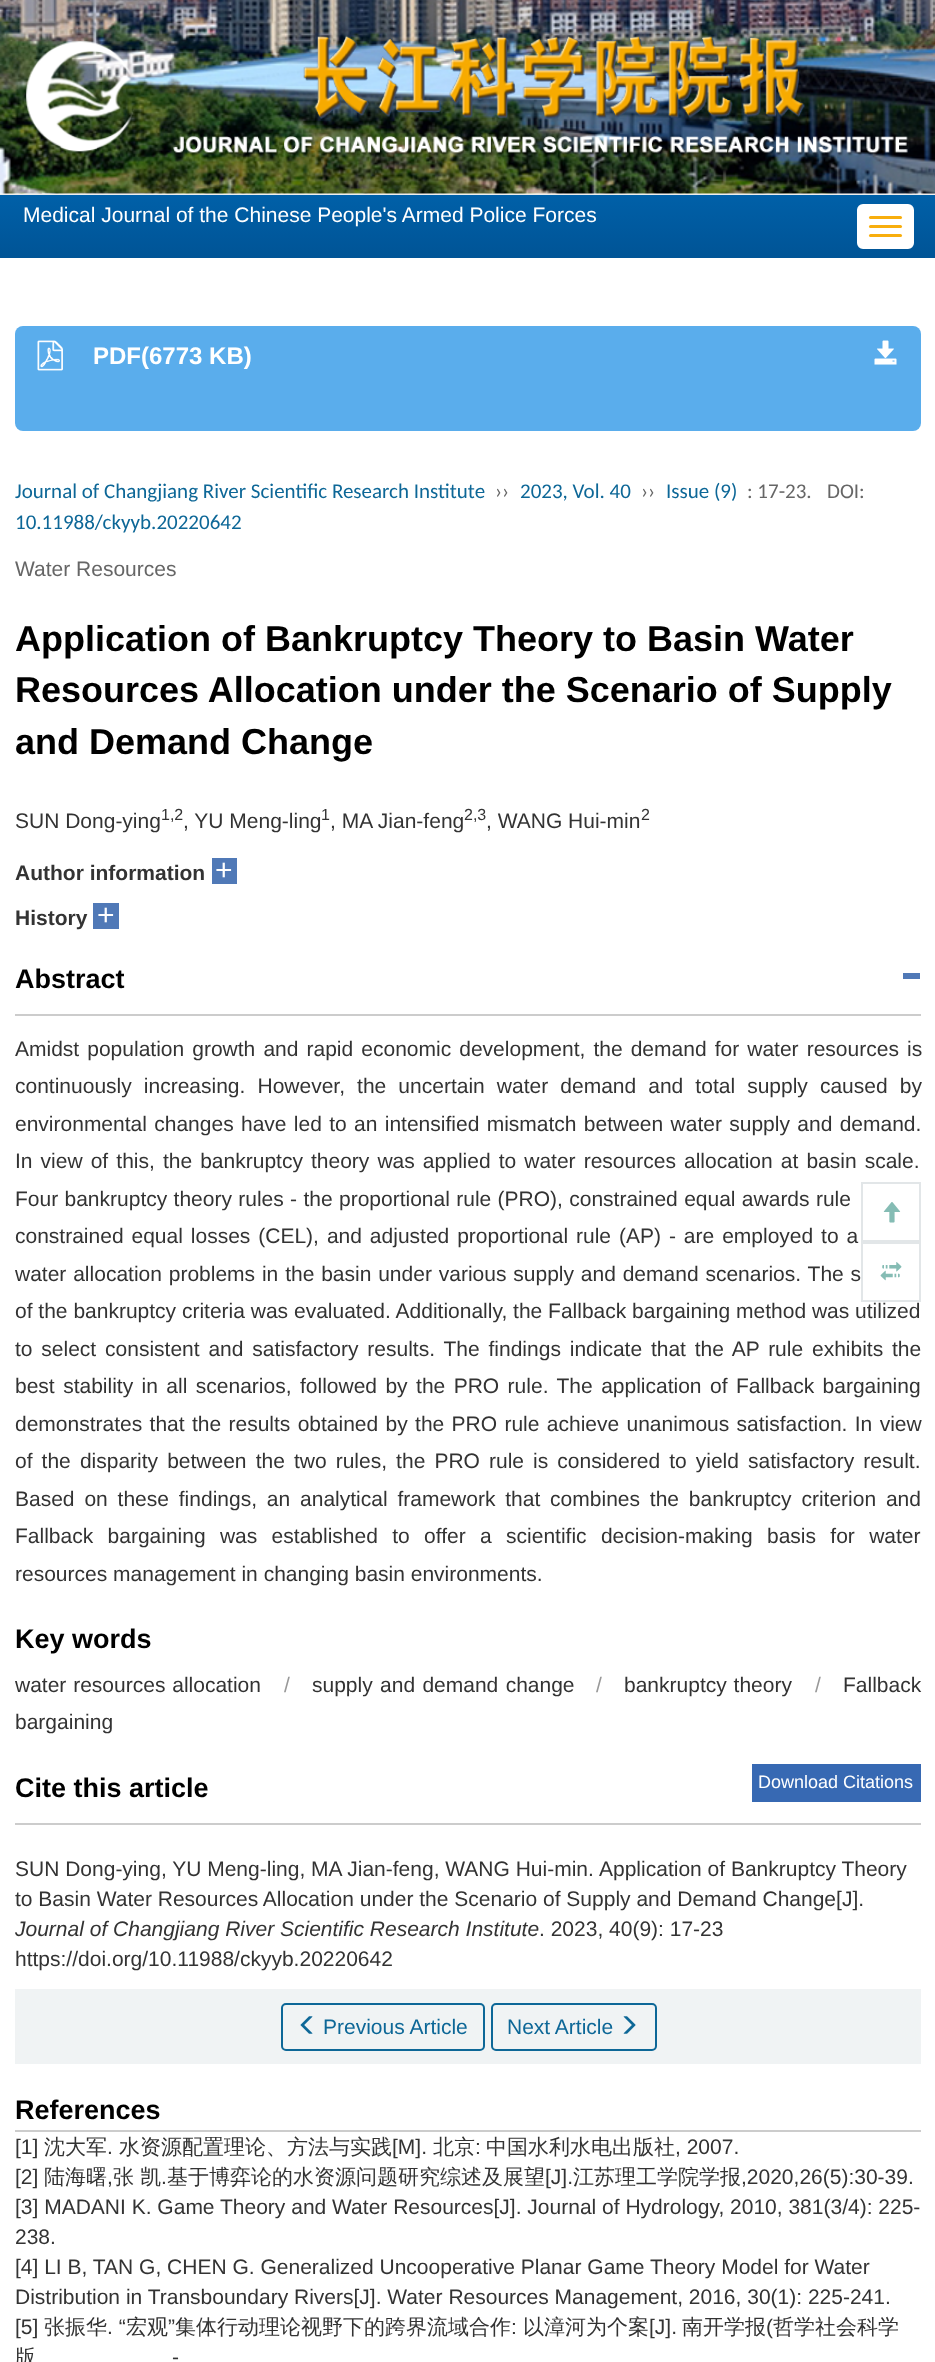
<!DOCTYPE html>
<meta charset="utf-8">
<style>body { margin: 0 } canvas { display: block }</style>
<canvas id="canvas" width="935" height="2362"></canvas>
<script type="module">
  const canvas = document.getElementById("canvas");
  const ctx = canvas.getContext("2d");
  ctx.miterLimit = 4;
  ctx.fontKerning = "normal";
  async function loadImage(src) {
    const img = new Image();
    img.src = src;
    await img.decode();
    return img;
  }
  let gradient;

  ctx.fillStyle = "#ffffff";
  ctx.fillRect(0, 0, 935, 2362);
  ctx.drawImage(await loadImage("img1.png"), 0, 0, 935, 194);
  ctx.drawImage(await loadImage("img2.png"), 26, 35, 882, 121);
  ctx.fillStyle = "#eeeeee";
  ctx.fillRect(0, 194, 935, 1);
  gradient = ctx.createLinearGradient(468, 195, 468, 258);
  gradient.addColorStop(0, "#0060a8");
  gradient.addColorStop(1, "#005496");
  ctx.fillStyle = gradient;
  ctx.fillRect(0, 195, 935, 63);
  ctx.font = "21px Liberation Sans";
  ctx.fillStyle = "#ffffff";
  ctx.fillText("Medical Journal of the Chinese People's Armed Police Forces", 23, 222);
  ctx.beginPath();
  ctx.roundRect(858, 205, 55, 43, 5);
  ctx.fill();
  ctx.strokeStyle = "#ffffff";
  ctx.lineWidth = 2;
  ctx.stroke();
  ctx.fillStyle = "#f8ae0d";
  ctx.beginPath();
  ctx.roundRect(869, 216, 33, 3, 1.5);
  ctx.fill();
  ctx.beginPath();
  ctx.roundRect(869, 225, 33, 3, 1.5);
  ctx.fill();
  ctx.beginPath();
  ctx.roundRect(869, 234, 33, 3, 1.5);
  ctx.fill();
  ctx.fillStyle = "#5aadec";
  ctx.beginPath();
  ctx.roundRect(15, 326, 906, 105, 8);
  ctx.fill();
  ctx.drawImage(await loadImage("img3.png"), 37, 340, 26, 31);
  ctx.font = "bold 24px Liberation Sans";
  ctx.fillStyle = "#ffffff";
  ctx.fillText("PDF(6773 KB)", 93, 364);
  ctx.drawImage(await loadImage("img4.png"), 874, 340, 23, 25);
  ctx.font = "21px Carlito";
  ctx.fillStyle = "#0d6797";
  ctx.fillText("Journal of Changjiang River Scientific Research Institute", 15, 498);
  ctx.fillStyle = "#666666";
  ctx.fillText("››", 495, 498);
  ctx.fillStyle = "#0d6797";
  ctx.fillText("2023, Vol. 40", 520, 498);
  ctx.fillStyle = "#666666";
  ctx.fillText("››", 641, 498);
  ctx.fillStyle = "#0d6797";
  ctx.fillText("Issue (9)", 666, 498);
  ctx.fillStyle = "#666666";
  ctx.fillText(": 17-23.", 747, 498);
  ctx.fillText("DOI:", 827, 498);
  ctx.fillStyle = "#0d6797";
  ctx.fillText("10.11988/ckyyb.20220642", 15, 529);
  ctx.font = "21px Liberation Sans";
  ctx.fillStyle = "#666666";
  ctx.fillText("Water Resources", 15, 576);
  ctx.font = "bold 36px Liberation Sans";
  ctx.fillStyle = "#000000";
  ctx.fillText("Application of Bankruptcy Theory to Basin Water", 15, 651);
  ctx.fillText("Resources Allocation under the Scenario of Supply", 15, 702);
  ctx.fillText("and Demand Change", 15, 754);
  ctx.font = "21px Liberation Sans";
  ctx.fillStyle = "#333333";
  ctx.fillText("SUN Dong-ying", 15, 828);
  ctx.font = "16px Liberation Sans";
  ctx.fillText("1,2", 161, 820);
  ctx.font = "21px Liberation Sans";
  ctx.fillText(", YU Meng-ling", 183, 828);
  ctx.font = "16px Liberation Sans";
  ctx.fillText("1", 321, 820);
  ctx.font = "21px Liberation Sans";
  ctx.fillText(", MA Jian-feng", 330, 828);
  ctx.font = "16px Liberation Sans";
  ctx.fillText("2,3", 464, 820);
  ctx.font = "21px Liberation Sans";
  ctx.fillText(", WANG Hui-min", 486, 828);
  ctx.font = "16px Liberation Sans";
  ctx.fillText("2", 641, 820);
  ctx.font = "bold 21px Liberation Sans";
  ctx.fillText("Author information", 15, 880);
  ctx.fillStyle = "#5079b7";
  ctx.fillRect(212, 858, 25, 26);
  ctx.font = "30px Liberation Sans";
  ctx.fillStyle = "#ffffff";
  ctx.fillText("+", 215, 880);
  ctx.font = "bold 21px Liberation Sans";
  ctx.fillStyle = "#333333";
  ctx.fillText("History", 15, 925);
  ctx.fillStyle = "#5079b7";
  ctx.fillRect(93, 903, 26, 26);
  ctx.font = "30px Liberation Sans";
  ctx.fillStyle = "#ffffff";
  ctx.fillText("+", 97, 925);
  ctx.fillStyle = "#cccccc";
  ctx.fillRect(15, 1014, 906, 2);
  ctx.font = "bold 27px Liberation Sans";
  ctx.fillStyle = "#000000";
  ctx.fillText("Abstract", 15, 988);
  ctx.fillStyle = "#5079b7";
  ctx.fillRect(903, 973, 17, 6);
  ctx.wordSpacing = "2.25px";
  ctx.font = "21px Liberation Sans";
  ctx.fillStyle = "#333333";
  ctx.fillText("Amidst population growth and rapid economic development, the demand for water resources is", 15, 1056);
  ctx.wordSpacing = "6.25px";
  ctx.fillText("continuously increasing. However, the uncertain water demand and total supply caused by", 15, 1093);
  ctx.wordSpacing = "1.5px";
  ctx.fillText("environmental changes have led to an intensified mismatch between water supply and demand.", 15, 1131);
  ctx.wordSpacing = "2.25px";
  ctx.fillText("In view of this, the bankruptcy theory was applied to water resources allocation at basin scale.", 15, 1168);
  ctx.wordSpacing = "0.5px";
  ctx.fillText("Four bankruptcy theory rules - the proportional rule (PRO), constrained equal awards rule", 15, 1206);
  ctx.wordSpacing = "2.1px";
  ctx.fillText("constrained equal losses (CEL), and adjusted proportional rule (AP) - are employed to a", 15, 1243);
  ctx.wordSpacing = "1px";
  ctx.fillText("water allocation problems in the basin under various supply and demand scenarios. The s", 15, 1281);
  ctx.wordSpacing = "0px";
  ctx.fillText("of the bankruptcy criteria was evaluated. Additionally, the Fallback bargaining method was utilized", 15, 1318);
  ctx.wordSpacing = "3px";
  ctx.fillText("to select consistent and satisfactory results. The findings indicate that the AP rule exhibits the", 15, 1356);
  ctx.wordSpacing = "2.6px";
  ctx.fillText("best stability in all scenarios, followed by the PRO rule. The application of Fallback bargaining", 15, 1393);
  ctx.wordSpacing = "1.5px";
  ctx.fillText("demonstrates that the results obtained by the PRO rule achieve unanimous satisfaction. In view", 15, 1431);
  ctx.wordSpacing = "3.25px";
  ctx.fillText("of the disparity between the two rules, the PRO rule is considered to yield satisfactory result.", 15, 1468);
  ctx.wordSpacing = "4px";
  ctx.fillText("Based on these findings, an analytical framework that combines the bankruptcy criterion and", 15, 1506);
  ctx.wordSpacing = "8.5px";
  ctx.fillText("Fallback bargaining was established to offer a scientific decision-making basis for water", 15, 1543);
  ctx.wordSpacing = "0px";
  ctx.fillText("resources management in changing basin environments.", 15, 1581);
  ctx.font = "bold 27px Liberation Sans";
  ctx.fillStyle = "#000000";
  ctx.fillText("Key words", 15, 1648);
  ctx.wordSpacing = "1px";
  ctx.font = "21px Liberation Sans";
  ctx.fillStyle = "#333333";
  ctx.fillText("water resources allocation", 15, 1692);
  ctx.wordSpacing = "0px";
  ctx.fillStyle = "#999999";
  ctx.fillText("/", 284, 1692);
  ctx.wordSpacing = "1.5px";
  ctx.fillStyle = "#333333";
  ctx.fillText("supply and demand change", 312, 1692);
  ctx.wordSpacing = "0px";
  ctx.fillStyle = "#999999";
  ctx.fillText("/", 596, 1692);
  ctx.wordSpacing = "1px";
  ctx.fillStyle = "#333333";
  ctx.fillText("bankruptcy theory", 624, 1692);
  ctx.wordSpacing = "0px";
  ctx.fillStyle = "#999999";
  ctx.fillText("/", 815, 1692);
  ctx.fillStyle = "#333333";
  ctx.fillText("Fallback", 843, 1692);
  ctx.fillText("bargaining", 15, 1729);
  ctx.fillStyle = "#cccccc";
  ctx.fillRect(15, 1823, 906, 2);
  ctx.font = "bold 27px Liberation Sans";
  ctx.fillStyle = "#000000";
  ctx.fillText("Cite this article", 15, 1797);
  ctx.fillStyle = "#3769b3";
  ctx.fillRect(752, 1764, 169, 38);
  ctx.font = "18px Liberation Sans";
  ctx.fillStyle = "#ffffff";
  ctx.fillText("Download Citations", 758, 1788);
  ctx.font = "21px Liberation Sans";
  ctx.fillStyle = "#333333";
  ctx.fillText("SUN Dong-ying, YU Meng-ling, MA Jian-feng, WANG Hui-min.", 15, 1876);
  ctx.fillText("Application of Bankruptcy Theory", 599, 1876);
  ctx.fillText("to Basin Water Resources Allocation under the Scenario of Supply and Demand Change[J].", 15, 1906);
  ctx.font = "italic 21px Liberation Sans";
  ctx.fillText("Journal of Changjiang River Scientific Research Institute", 15, 1936);
  ctx.font = "21px Liberation Sans";
  ctx.fillText(". 2023, 40(9): 17-23", 539, 1936);
  ctx.fillText("https://doi.org/10.11988/ckyyb.20220642", 15, 1966);
  ctx.fillStyle = "#f0f3f4";
  ctx.fillRect(15, 1989, 906, 75);
  ctx.beginPath();
  ctx.roundRect(282, 2004, 202, 46, 4);
  ctx.strokeStyle = "#0d6797";
  ctx.stroke();
  ctx.drawImage(await loadImage("img5.png"), 300, 2016, 13, 18);
  ctx.fillStyle = "#0d6797";
  ctx.fillText("Previous Article", 323, 2034);
  ctx.beginPath();
  ctx.roundRect(492, 2004, 164, 46, 4);
  ctx.stroke();
  ctx.fillText("Next Article", 507, 2034);
  ctx.drawImage(await loadImage("img6.png"), 623, 2016, 13, 18);
  ctx.fillStyle = "#cccccc";
  ctx.fillRect(15, 2130, 906, 2);
  ctx.font = "bold 27px Liberation Sans";
  ctx.fillStyle = "#000000";
  ctx.fillText("References", 15, 2119);
  ctx.font = "21px Liberation Sans";
  ctx.fillStyle = "#333333";
  ctx.fillText("[1]", 15, 2154);
  ctx.font = "500 21px WenQuanYi Zen Hei";
  ctx.fillText("沈大军", 44, 2154);
  ctx.font = "21px Liberation Sans";
  ctx.fillText(".", 107, 2154);
  ctx.font = "500 21px WenQuanYi Zen Hei";
  ctx.fillText("水资源配置理论、方法与实践", 119, 2154);
  ctx.font = "21px Liberation Sans";
  ctx.fillText("[M].", 392, 2154);
  ctx.font = "500 21px WenQuanYi Zen Hei";
  ctx.fillText("北京", 433, 2154);
  ctx.font = "21px Liberation Sans";
  ctx.fillText(":", 475, 2154);
  ctx.font = "500 21px WenQuanYi Zen Hei";
  ctx.fillText("中国水利水电出版社", 486, 2154);
  ctx.font = "21px Liberation Sans";
  ctx.fillText(", 2007.", 675, 2154);
  ctx.fillText("[2]", 15, 2184);
  ctx.font = "500 21px WenQuanYi Zen Hei";
  ctx.fillText("陆海曙", 44, 2184);
  ctx.font = "21px Liberation Sans";
  ctx.fillText(",", 107, 2184);
  ctx.font = "500 21px WenQuanYi Zen Hei";
  ctx.fillText("张 凯", 113, 2184);
  ctx.font = "21px Liberation Sans";
  ctx.fillText(".", 161, 2184);
  ctx.font = "500 21px WenQuanYi Zen Hei";
  ctx.fillText("基于博弈论的水资源问题研究综述及展望", 167, 2184);
  ctx.font = "21px Liberation Sans";
  ctx.fillText("[J].", 545, 2184);
  ctx.font = "500 21px WenQuanYi Zen Hei";
  ctx.fillText("江苏理工学院学报", 573, 2184);
  ctx.font = "21px Liberation Sans";
  ctx.fillText(",2020,26(5):30-39.", 741, 2184);
  ctx.fillText("[3] MADANI K. Game Theory and Water Resources[J]. Journal of Hydrology, 2010, 381(3/4): 225-", 15, 2214);
  ctx.fillText("238.", 15, 2244);
  ctx.fillText("[4] LI B, TAN G, CHEN G. Generalized Uncooperative Planar Game Theory Model for Water", 15, 2274);
  ctx.fillText("Distribution in Transboundary Rivers[J]. Water Resources Management, 2016, 30(1): 225-241.", 15, 2304);
  ctx.fillText("[5]", 15, 2334);
  ctx.font = "500 21px WenQuanYi Zen Hei";
  ctx.fillText("张振华", 44, 2334);
  ctx.font = "21px Liberation Sans";
  ctx.fillText(". “", 107, 2334);
  ctx.font = "500 21px WenQuanYi Zen Hei";
  ctx.fillText("宏观", 126, 2334);
  ctx.font = "21px Liberation Sans";
  ctx.fillText("”", 168, 2334);
  ctx.font = "500 21px WenQuanYi Zen Hei";
  ctx.fillText("集体行动理论视野下的跨界流域合作", 175, 2334);
  ctx.font = "21px Liberation Sans";
  ctx.fillText(":", 511, 2334);
  ctx.font = "500 21px WenQuanYi Zen Hei";
  ctx.fillText("以漳河为个案", 523, 2334);
  ctx.font = "21px Liberation Sans";
  ctx.fillText("[J].", 649, 2334);
  ctx.font = "500 21px WenQuanYi Zen Hei";
  ctx.fillText("南开学报", 682, 2334);
  ctx.font = "21px Liberation Sans";
  ctx.fillText("(", 766, 2334);
  ctx.font = "500 21px WenQuanYi Zen Hei";
  ctx.fillText("哲学社会科学", 773, 2334);
  ctx.fillText("版", 15, 2364);
  ctx.font = "21px Liberation Sans";
  ctx.fillText("-", 172, 2364);
  ctx.strokeStyle = "#e2e6e8";
  ctx.strokeRect(862, 1183, 58, 58);
  ctx.drawImage(await loadImage("img7.png"), 883, 1202, 18, 21);
  ctx.strokeRect(862, 1243, 58, 58);
  ctx.drawImage(await loadImage("img8.png"), 880, 1262, 22, 19);
</script>
